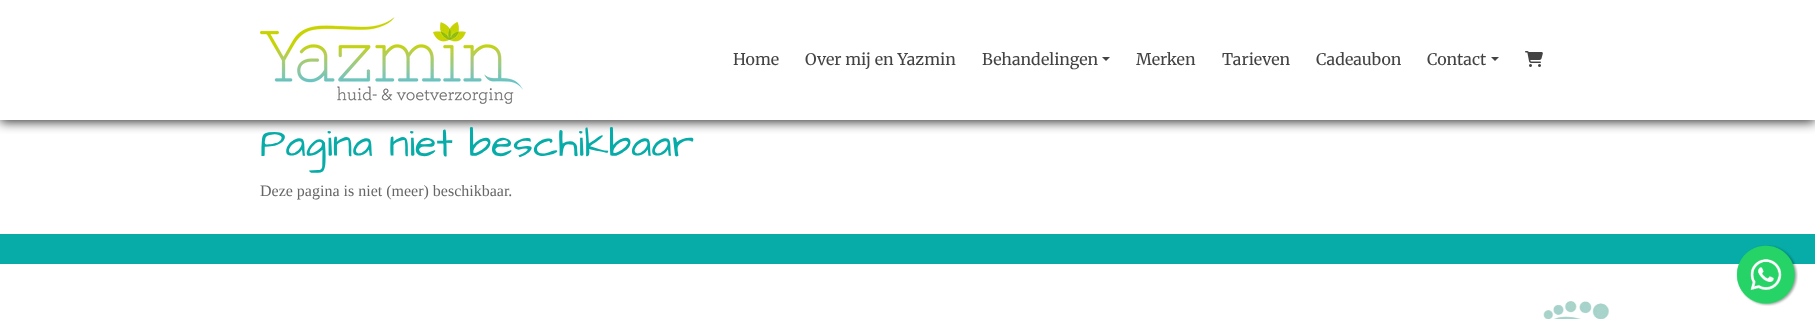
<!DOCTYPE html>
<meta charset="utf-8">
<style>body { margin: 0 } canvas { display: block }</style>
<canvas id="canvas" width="1815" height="319"></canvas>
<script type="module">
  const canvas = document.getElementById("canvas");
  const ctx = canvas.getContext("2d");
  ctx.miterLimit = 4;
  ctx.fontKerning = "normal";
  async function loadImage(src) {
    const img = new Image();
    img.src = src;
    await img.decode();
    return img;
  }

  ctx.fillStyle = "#ffffff";
  ctx.fillRect(0, 0, 1815, 319);
  ctx.save();
  ctx.beginPath();
  ctx.rect(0, 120, 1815, 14);
  ctx.clip();
  ctx.fillStyle = "rgba(0, 0, 0, 0.8)";
  ctx.filter = "blur(6px)";
  ctx.beginPath();
  ctx.rect(0, 2, 1815, 120);
  ctx.fill();
  ctx.filter = "none";
  ctx.restore();
  ctx.drawImage(await loadImage("img1.png"), 260, 17, 263, 87);
  ctx.font = "300 16px Merriweather";
  ctx.fillStyle = "#434343";
  ctx.fillText("Home", 733, 65);
  ctx.fillText("Over mij en Yazmin", 805, 65);
  ctx.fillText("Behandelingen", 982, 65);
  ctx.beginPath();
  ctx.moveTo(1102, 57);
  ctx.lineTo(1110, 57);
  ctx.lineTo(1106, 61);
  ctx.closePath();
  ctx.fill();
  ctx.fillText("Merken", 1136, 65);
  ctx.fillText("Tarieven", 1222, 65);
  ctx.fillText("Cadeaubon", 1316, 65);
  ctx.fillText("Contact", 1427, 65);
  ctx.beginPath();
  ctx.moveTo(1491, 57);
  ctx.lineTo(1499, 57);
  ctx.lineTo(1495, 61);
  ctx.closePath();
  ctx.fill();
  ctx.drawImage(await loadImage("img2.png"), 1525, 51, 18, 16);
  ctx.font = "40px Architects Daughter";
  ctx.fillStyle = "#07aba7";
  ctx.fillText("Pagina niet beschikbaar", 260, 156);
  ctx.font = "16px Liberation Serif";
  ctx.fillStyle = "#666666";
  ctx.fillText("Deze pagina is niet (meer) beschikbaar.", 260, 196);
  ctx.fillStyle = "#07aba7";
  ctx.fillRect(0, 234, 1815, 30);
  ctx.drawImage(await loadImage("img3.png"), 1736, 245, 62, 61);
  ctx.drawImage(await loadImage("img4.png"), 1543, 301, 66, 18);
</script>
